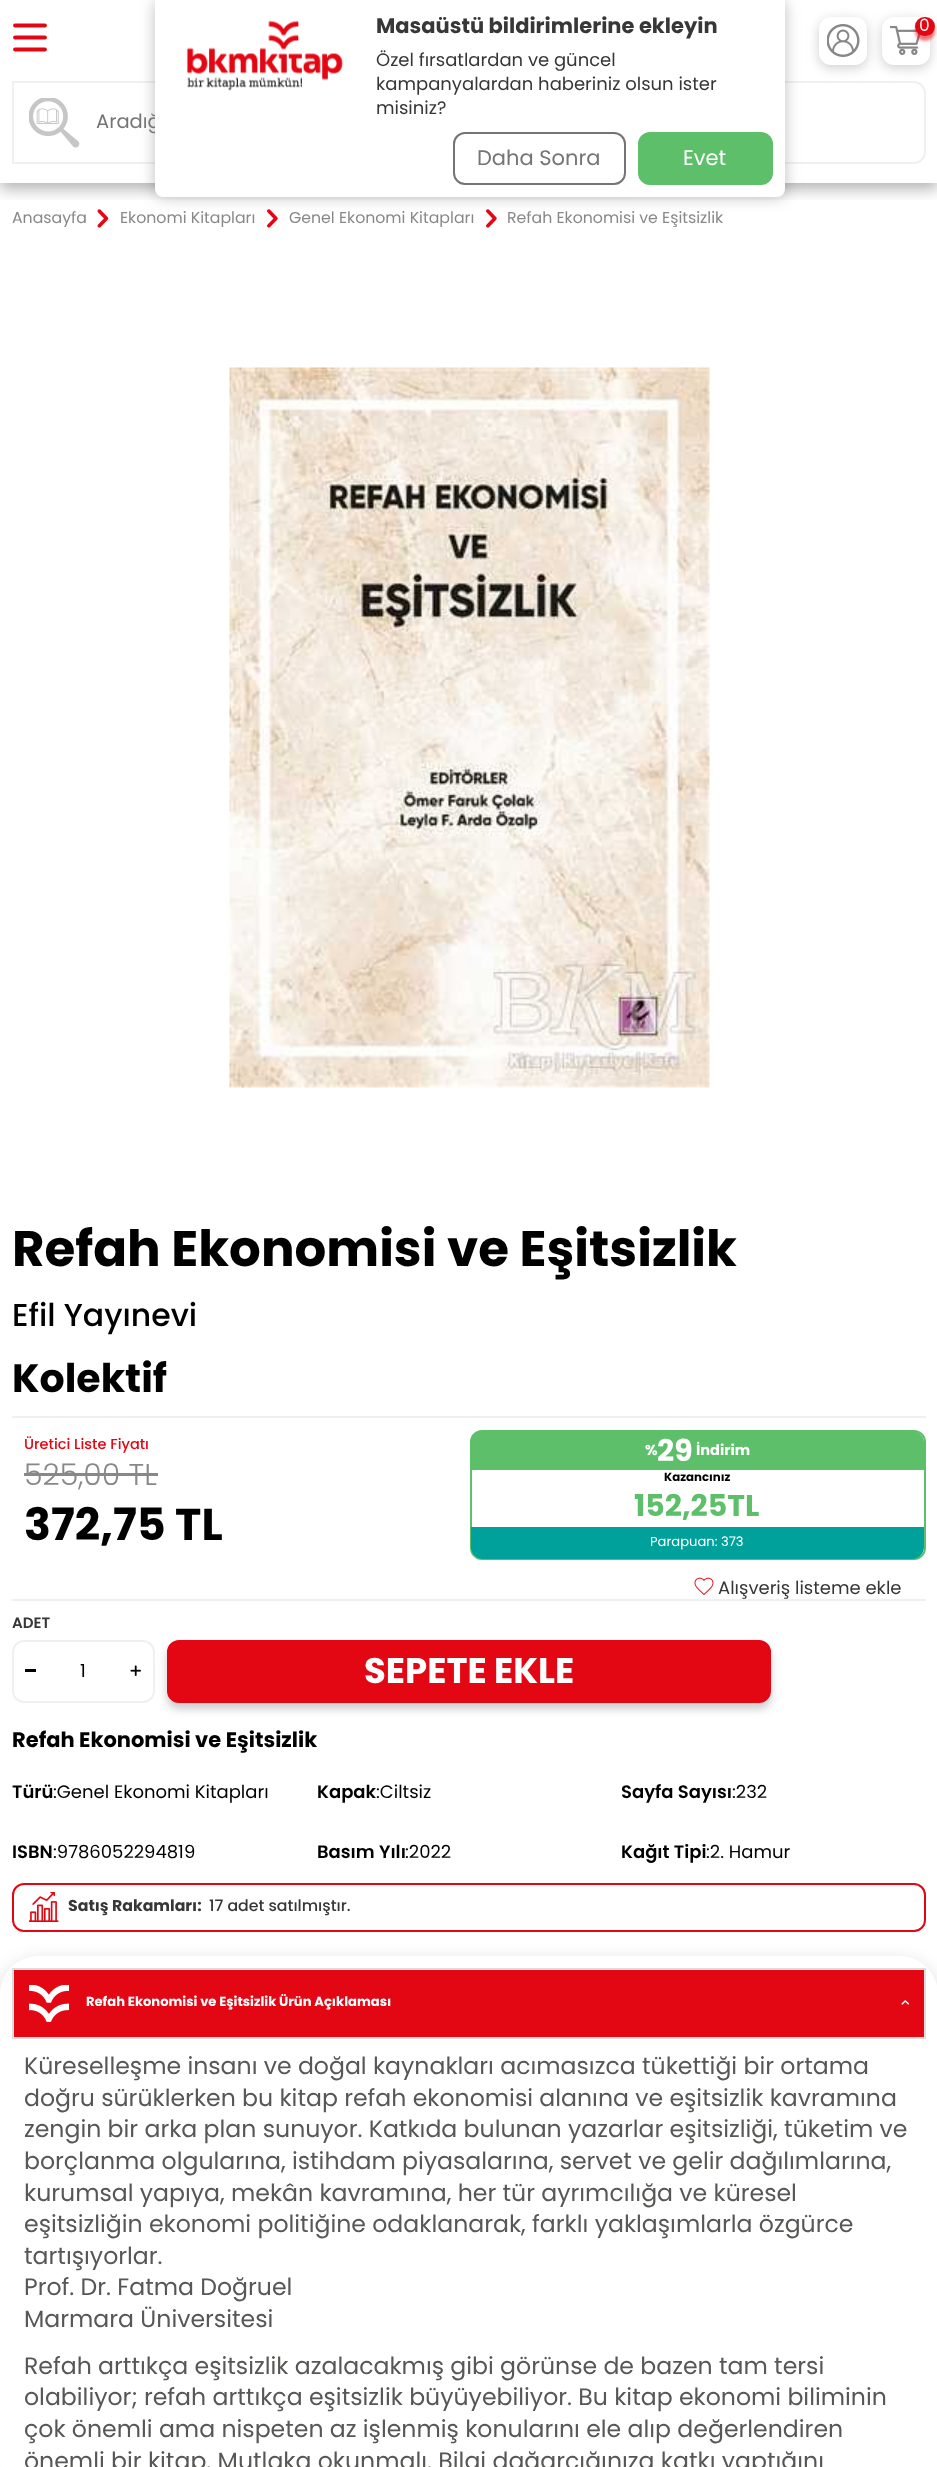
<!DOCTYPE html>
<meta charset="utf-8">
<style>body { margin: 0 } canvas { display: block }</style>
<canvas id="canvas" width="937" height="2467"></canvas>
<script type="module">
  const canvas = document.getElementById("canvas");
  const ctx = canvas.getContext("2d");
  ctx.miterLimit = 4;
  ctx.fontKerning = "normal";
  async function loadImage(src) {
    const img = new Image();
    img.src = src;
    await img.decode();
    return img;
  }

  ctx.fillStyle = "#ffffff";
  ctx.fillRect(0, 0, 937, 2467);
  ctx.drawImage(await loadImage("img5.png"), 97, 209, 12, 19);
  ctx.drawImage(await loadImage("img6.png"), 267, 209, 11, 19);
  ctx.drawImage(await loadImage("img6.png"), 486, 209, 11, 19);
  ctx.save();
  ctx.beginPath();
  ctx.rect(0, 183, 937, 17);
  ctx.clip();
  ctx.fillStyle = "rgba(0, 0, 0, 0.3)";
  ctx.filter = "blur(7.5px)";
  ctx.beginPath();
  ctx.rect(0, 6, 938, 183);
  ctx.fill();
  ctx.filter = "none";
  ctx.restore();
  ctx.beginPath();
  ctx.roundRect(13, 82, 912, 81, [0, 11, 11, 0]);
  ctx.strokeStyle = "#f0f0f0";
  ctx.lineWidth = 2;
  ctx.stroke();
  ctx.fillStyle = "rgba(40, 40, 40, 0.3)";
  ctx.filter = "blur(7.5px)";
  ctx.beginPath();
  ctx.roundRect(155, 0, 630, 197, 8);
  ctx.fill();
  ctx.filter = "none";
  ctx.font = "19.5px Poppins";
  ctx.fillStyle = "#757575";
  ctx.fillText("Aradığ", 96, 128);
  ctx.fillStyle = "#ffffff";
  ctx.beginPath();
  ctx.roundRect(155, 0, 630, 197, [0, 0, 8, 8]);
  ctx.fill();
  ctx.drawImage(await loadImage("img1.png"), 186, 20, 157, 71);
  ctx.font = "bold 21px Poppins";
  ctx.fillStyle = "#373738";
  ctx.fillText("Masaüstü bildirimlerine ekleyin", 376, 33);
  ctx.font = "18px Poppins";
  ctx.fillText("Özel fırsatlardan ve güncel", 376, 66);
  ctx.fillText("kampanyalardan haberiniz olsun ister", 376, 90);
  ctx.fillText("misiniz?", 376, 114);
  ctx.beginPath();
  ctx.roundRect(454, 133, 171, 51, 11);
  ctx.strokeStyle = "#747474";
  ctx.stroke();
  ctx.font = "21px Poppins";
  ctx.fillStyle = "#757575";
  ctx.fillText("Daha Sonra", 477, 165);
  ctx.fillStyle = "#5dbf6a";
  ctx.beginPath();
  ctx.roundRect(639, 133, 133, 51, 11);
  ctx.fill();
  ctx.strokeStyle = "#5dbf6a";
  ctx.stroke();
  ctx.fillStyle = "#ffffff";
  ctx.fillText("Evet", 683, 165);
  ctx.beginPath();
  ctx.moveTo(15, 25.5);
  ctx.lineTo(45, 25.5);
  ctx.moveTo(15, 37.5);
  ctx.lineTo(45, 37.5);
  ctx.moveTo(15, 49.5);
  ctx.lineTo(45, 49.5);
  ctx.strokeStyle = "#e30613";
  ctx.lineWidth = 3.8;
  ctx.lineCap = "round";
  ctx.stroke();
  ctx.save();
  ctx.beginPath();
  ctx.moveTo(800, 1);
  ctx.lineTo(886, 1);
  ctx.lineTo(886, 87);
  ctx.lineTo(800, 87);
  ctx.closePath();
  ctx.moveTo(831, 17);
  ctx.lineTo(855, 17);
  ctx.bezierCurveTo(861.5, 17, 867, 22.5, 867, 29);
  ctx.lineTo(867, 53);
  ctx.bezierCurveTo(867, 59.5, 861.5, 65, 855, 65);
  ctx.lineTo(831, 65);
  ctx.bezierCurveTo(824.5, 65, 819, 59.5, 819, 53);
  ctx.lineTo(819, 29);
  ctx.bezierCurveTo(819, 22.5, 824.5, 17, 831, 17);
  ctx.closePath();
  ctx.clip("evenodd");
  ctx.fillStyle = "rgba(160, 160, 160, 0.5)";
  ctx.filter = "blur(6px)";
  ctx.beginPath();
  ctx.roundRect(819, 20, 48, 48, 12);
  ctx.fill();
  ctx.filter = "none";
  ctx.restore();
  ctx.drawImage(await loadImage("img2.png"), 827, 24, 33, 33);
  ctx.save();
  ctx.beginPath();
  ctx.moveTo(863, 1);
  ctx.lineTo(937, 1);
  ctx.lineTo(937, 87);
  ctx.lineTo(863, 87);
  ctx.closePath();
  ctx.moveTo(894, 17);
  ctx.lineTo(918, 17);
  ctx.bezierCurveTo(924.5, 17, 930, 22.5, 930, 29);
  ctx.lineTo(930, 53);
  ctx.bezierCurveTo(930, 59.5, 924.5, 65, 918, 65);
  ctx.lineTo(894, 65);
  ctx.bezierCurveTo(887.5, 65, 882, 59.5, 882, 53);
  ctx.lineTo(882, 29);
  ctx.bezierCurveTo(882, 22.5, 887.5, 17, 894, 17);
  ctx.closePath();
  ctx.clip("evenodd");
  ctx.fillStyle = "rgba(160, 160, 160, 0.5)";
  ctx.filter = "blur(6px)";
  ctx.beginPath();
  ctx.roundRect(882, 20, 48, 48, 12);
  ctx.fill();
  ctx.filter = "none";
  ctx.restore();
  ctx.drawImage(await loadImage("img3.png"), 890, 26, 31, 29);
  ctx.fillStyle = "rgba(227, 6, 19, 0.56)";
  ctx.filter = "blur(1.5px)";
  ctx.beginPath();
  ctx.roundRect(915, 21, 20, 20, 10);
  ctx.fill();
  ctx.filter = "none";
  ctx.fillStyle = "#e30613";
  ctx.beginPath();
  ctx.roundRect(915, 17, 20, 19, 9.5);
  ctx.fill();
  ctx.font = "17px Poppins";
  ctx.fillStyle = "#ffffff";
  ctx.fillText("0", 919, 31);
  ctx.drawImage(await loadImage("img4.png"), 29, 98, 51, 50);
  ctx.font = "15.75px Poppins";
  ctx.fillStyle = "#888888";
  ctx.fillText("Anasayfa", 12, 223);
  ctx.fillText("Ekonomi Kitapları", 120, 223);
  ctx.fillText("Genel Ekonomi Kitapları", 289, 223);
  ctx.fillText("Refah Ekonomisi ve Eşitsizlik", 507, 223);
  ctx.drawImage(await loadImage("img7.png"), 229, 367, 481, 721);
  ctx.font = "bold 49.9px Poppins";
  ctx.fillStyle = "#000000";
  ctx.fillText("Refah Ekonomisi ve Eşitsizlik", 12, 1266);
  ctx.font = "500 31.5px Poppins";
  ctx.fillText("Efil Yayınevi", 12, 1326);
  ctx.font = "bold 39.5px Poppins";
  ctx.fillText("Kolektif", 12, 1392);
  ctx.fillStyle = "#f0f0f0";
  ctx.fillRect(12, 1416, 914, 2);
  ctx.fillRect(12, 1599, 914, 2);
  ctx.font = "500 14.5px Poppins";
  ctx.fillStyle = "#e30613";
  ctx.fillText("Üretici Liste Fiyatı", 24, 1449);
  ctx.font = "300 30px Poppins";
  ctx.fillStyle = "#888888";
  ctx.fillText("525,00 TL", 24, 1485);
  ctx.fillRect(24, 1473, 134, 3);
  ctx.font = "bold 44.5px Poppins";
  ctx.fillStyle = "#000000";
  ctx.fillText("372,75 TL", 24, 1540);
  ctx.beginPath();
  ctx.roundRect(471, 1431, 454, 128, 11);
  ctx.strokeStyle = "#5dbf6a";
  ctx.lineWidth = 2;
  ctx.stroke();
  ctx.fillStyle = "#5dbf6a";
  ctx.beginPath();
  ctx.roundRect(471, 1431, 453, 39, [12, 12, 0, 0]);
  ctx.fill();
  ctx.font = "bold 14.5px Poppins";
  ctx.fillStyle = "#ffffff";
  ctx.fillText("%", 645, 1455);
  ctx.font = "bold 30px Poppins";
  ctx.fillText("29", 657, 1461);
  ctx.font = "bold 14.5px Poppins";
  ctx.fillText("İndirim", 696, 1455);
  ctx.font = "bold 11.75px Poppins";
  ctx.fillStyle = "#000000";
  ctx.fillText("Kazancınız", 664, 1481);
  ctx.font = "bold 30px Poppins";
  ctx.fillStyle = "#5dbf6a";
  ctx.fillText("152,25TL", 634, 1516);
  ctx.fillStyle = "#00a19a";
  ctx.beginPath();
  ctx.roundRect(471, 1527, 453, 32, [0, 0, 12, 12]);
  ctx.fill();
  ctx.font = "13.1px Poppins";
  ctx.fillStyle = "#ffffff";
  ctx.fillText("Parapuan: 373", 650, 1546);
  ctx.drawImage(await loadImage("img8.png"), 694, 1577, 20, 18);
  ctx.font = "18px Poppins";
  ctx.fillStyle = "#373738";
  ctx.fillText("Alışveriş listeme ekle", 718, 1594);
  ctx.font = "600 15px Poppins";
  ctx.fillText("ADET", 12, 1628);
  ctx.fillStyle = "rgba(0, 0, 0, 0.2)";
  ctx.filter = "blur(4.5px)";
  ctx.beginPath();
  ctx.roundRect(167, 1646, 604, 63, 12);
  ctx.fill();
  ctx.filter = "none";
  ctx.beginPath();
  ctx.roundRect(13, 1641, 141, 61, 11);
  ctx.strokeStyle = "#f0f0f0";
  ctx.stroke();
  ctx.fillStyle = "#000000";
  ctx.fillRect(25, 1669, 11, 3);
  ctx.font = "18px Poppins";
  ctx.fillText("1", 80, 1677);
  ctx.drawImage(await loadImage("img9.png"), 130, 1665, 11, 11);
  ctx.fillStyle = "#e30613";
  ctx.beginPath();
  ctx.roundRect(168, 1641, 602, 61, 11);
  ctx.fill();
  ctx.strokeStyle = "#e30613";
  ctx.stroke();
  ctx.font = "bold 35.5px Poppins";
  ctx.fillStyle = "#ffffff";
  ctx.fillText("SEPETE EKLE", 364, 1683);
  ctx.font = "bold 21px Poppins";
  ctx.fillStyle = "#000000";
  ctx.fillText("Refah Ekonomisi ve Eşitsizlik", 12, 1747);
  ctx.font = "600 18px Poppins";
  ctx.fillText("Türü", 12, 1798);
  ctx.font = "18px Poppins";
  ctx.fillText(":Genel Ekonomi Kitapları", 53, 1798);
  ctx.font = "600 18px Poppins";
  ctx.fillText("Kapak", 317, 1798);
  ctx.font = "18px Poppins";
  ctx.fillText(":Ciltsiz", 376, 1798);
  ctx.font = "600 18px Poppins";
  ctx.fillText("Sayfa Sayısı", 621, 1798);
  ctx.font = "18px Poppins";
  ctx.fillText(":232", 732, 1798);
  ctx.font = "600 18px Poppins";
  ctx.fillText("ISBN", 12, 1858);
  ctx.font = "18px Poppins";
  ctx.fillText(":9786052294819", 53, 1858);
  ctx.font = "600 18px Poppins";
  ctx.fillText("Basım Yılı", 317, 1858);
  ctx.font = "18px Poppins";
  ctx.fillText(":2022", 405, 1858);
  ctx.font = "600 18px Poppins";
  ctx.fillText("Kağıt Tipi", 621, 1858);
  ctx.font = "18px Poppins";
  ctx.fillText(":2. Hamur", 706, 1858);
  ctx.beginPath();
  ctx.roundRect(13, 1884, 912, 47, 11);
  ctx.stroke();
  ctx.drawImage(await loadImage("img10.png"), 29, 1892, 30, 30);
  ctx.font = "bold 15.75px Poppins";
  ctx.fillStyle = "#373738";
  ctx.fillText("Satış Rakamları:", 68, 1911);
  ctx.font = "500 15.75px Poppins";
  ctx.fillText("17 adet satılmıştır.", 209, 1911);
  ctx.fillStyle = "rgba(0, 0, 0, 0.15)";
  ctx.filter = "blur(9px)";
  ctx.beginPath();
  ctx.roundRect(0, 1961, 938, 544, 38);
  ctx.fill();
  ctx.filter = "none";
  ctx.fillStyle = "#ffffff";
  ctx.beginPath();
  ctx.roundRect(0, 1956, 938, 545, 38);
  ctx.fill();
  ctx.fillStyle = "#e30613";
  ctx.beginPath();
  ctx.rect(13, 1969, 912, 69);
  ctx.fill();
  ctx.strokeStyle = "#dddddd";
  ctx.stroke();
  ctx.drawImage(await loadImage("img11.png"), 29, 1985, 40, 37);
  ctx.font = "bold 13.1px Poppins";
  ctx.fillStyle = "#ffffff";
  ctx.fillText("Refah Ekonomisi ve Eşitsizlik Ürün Açıklaması", 86, 2006);
  ctx.drawImage(await loadImage("img12.png"), 901, 2000, 9, 5);
  ctx.font = "23.6px Poppins";
  ctx.fillStyle = "#575756";
  ctx.fillText("Küreselleşme insanı ve doğal kaynakları acımasızca tükettiği bir ortama", 24, 2074);
  ctx.fillText("doğru sürüklerken bu kitap refah ekonomisi alanına ve eşitsizlik kavramına", 24, 2106);
  ctx.fillText("zengin bir arka plan sunuyor. Katkıda bulunan yazarlar eşitsizliği, tüketim ve", 24, 2137);
  ctx.fillText("borçlanma olgularına, istihdam piyasalarına, servet ve gelir dağılımlarına,", 24, 2169);
  ctx.fillText("kurumsal yapıya, mekân kavramına, her tür ayrımcılığa ve küresel", 24, 2201);
  ctx.fillText("eşitsizliğin ekonomi politiğine odaklanarak, farklı yaklaşımlarla özgürce", 24, 2232);
  ctx.fillText("tartışıyorlar.", 24, 2264);
  ctx.fillText("Prof. Dr. Fatma Doğruel", 24, 2295);
  ctx.fillText("Marmara Üniversitesi", 24, 2327);
  ctx.fillText("Refah arttıkça eşitsizlik azalacakmış gibi görünse de bazen tam tersi", 24, 2374);
  ctx.fillText("olabiliyor; refah arttıkça eşitsizlik büyüyebiliyor. Bu kitap ekonomi biliminin", 24, 2405);
  ctx.fillText("çok önemli ama nispeten az işlenmiş konularını ele alıp değerlendiren", 24, 2437);
  ctx.fillText("önemli bir kitap. Mutlaka okunmalı. Bilgi dağarcığınıza katkı yaptığını", 24, 2469);
</script>
